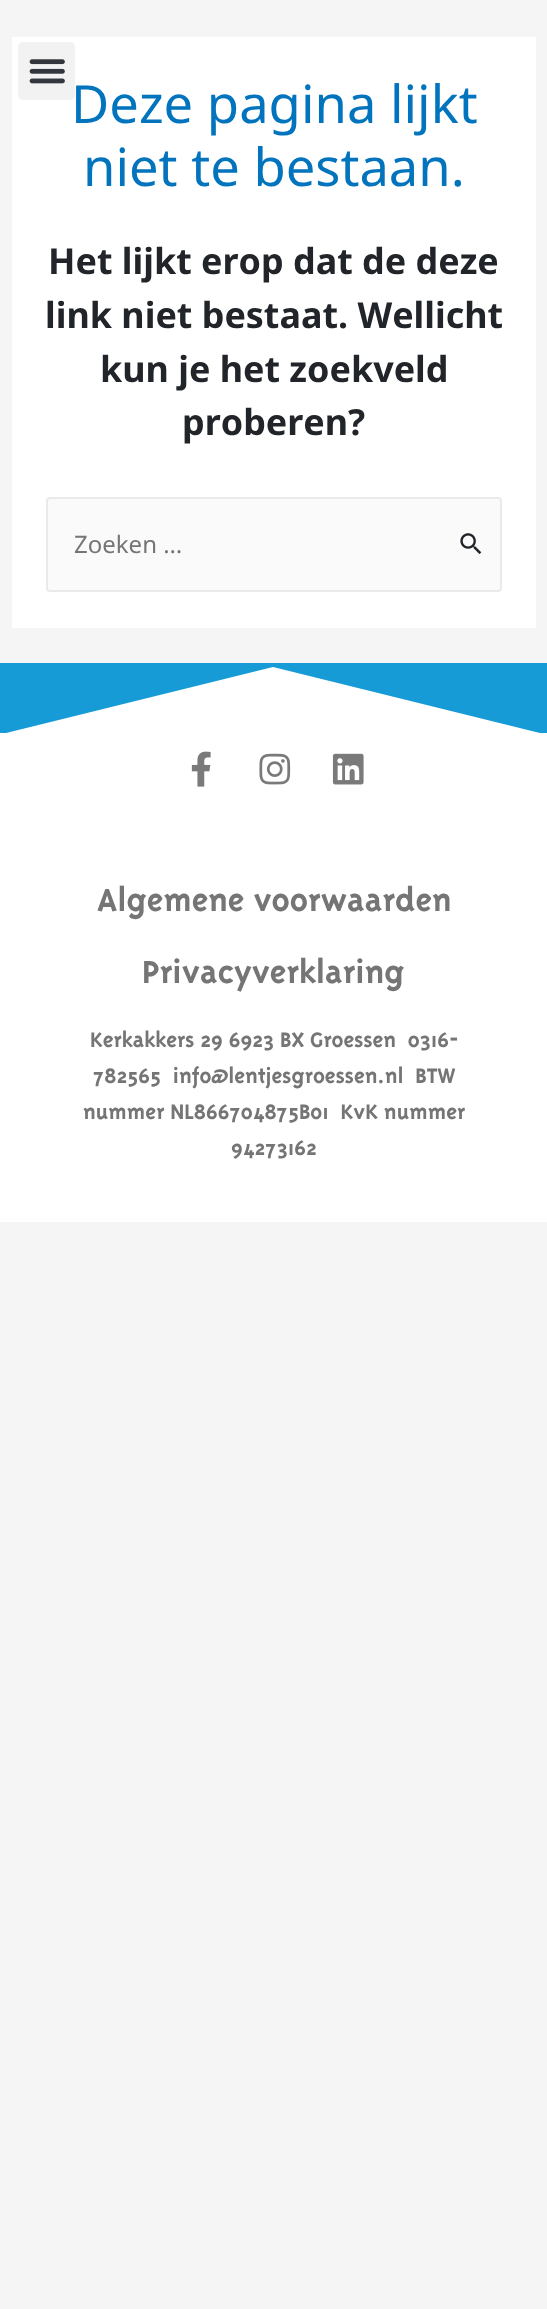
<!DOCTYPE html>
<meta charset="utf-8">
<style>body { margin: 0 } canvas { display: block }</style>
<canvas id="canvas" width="547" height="2309"></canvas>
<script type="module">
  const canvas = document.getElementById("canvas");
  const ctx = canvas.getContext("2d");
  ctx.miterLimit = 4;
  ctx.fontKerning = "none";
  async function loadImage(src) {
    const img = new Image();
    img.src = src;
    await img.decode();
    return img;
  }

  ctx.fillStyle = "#f5f5f5";
  ctx.fillRect(0, 0, 547, 2309);
  ctx.fillStyle = "#ffffff";
  ctx.fillRect(12, 37, 524, 591);
  ctx.fillStyle = "#f2f2f2";
  ctx.beginPath();
  ctx.roundRect(18, 42, 57, 58, 5);
  ctx.fill();
  ctx.drawImage(await loadImage("img1.png"), 29, 59, 36, 25);
  ctx.font = "52.5px Noto Sans";
  ctx.fillStyle = "#0274be";
  ctx.fillText("Deze pagina lijkt", 71, 123);
  ctx.fillText("niet te bestaan.", 83, 186);
  ctx.font = "bold 35.9px Noto Sans";
  ctx.fillStyle = "#212529";
  ctx.fillText("Het lijkt erop dat de deze", 48, 274);
  ctx.fillText("link niet bestaat. Wellicht", 45, 328);
  ctx.fillText("kun je het zoekveld", 100, 382);
  ctx.fillText("proberen?", 182, 435);
  ctx.fillStyle = "#fafafa";
  ctx.beginPath();
  ctx.roundRect(47, 498, 454, 93, 3);
  ctx.fill();
  ctx.strokeStyle = "#eaeaea";
  ctx.lineWidth = 2;
  ctx.stroke();
  ctx.font = "24px Noto Sans";
  ctx.fillStyle = "#757575";
  ctx.fillText("Zoeken …", 74, 553);
  ctx.drawImage(await loadImage("img2.png"), 460, 533, 22, 21);
  ctx.fillStyle = "#ffffff";
  ctx.fillRect(0, 667, 547, 555);
  ctx.save();
  ctx.beginPath();
  ctx.rect(0, 662, 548, 71);
  ctx.clip();
  ctx.fillStyle = "#179bd7";
  ctx.beginPath();
  ctx.moveTo(273, 667);
  ctx.lineTo(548, 735);
  ctx.lineTo(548, 663);
  ctx.lineTo(-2, 663);
  ctx.lineTo(-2, 735);
  ctx.closePath();
  ctx.fill();
  ctx.restore();
  ctx.drawImage(await loadImage("img3.png"), 191, 751, 20, 36);
  ctx.drawImage(await loadImage("img4.png"), 259, 753, 32, 32);
  ctx.drawImage(await loadImage("img5.png"), 332, 753, 32, 32);
  ctx.font = "bold 36.75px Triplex";
  ctx.fillStyle = "#757575";
  ctx.fillText("Algemene voorwaarden", 97, 911);
  ctx.fillText("Privacyverklaring", 142, 983);
  ctx.font = "bold 24px Triplex";
  ctx.fillText("Kerkakkers 29 6923 BX Groessen | 0316-", 90, 1047);
  ctx.fillText("782565 | info@lentjesgroessen.nl | BTW", 93, 1083);
  ctx.fillText("nummer NL866704875B01 | KvK nummer", 83, 1119);
  ctx.fillText("94273162", 231, 1155);
</script>
